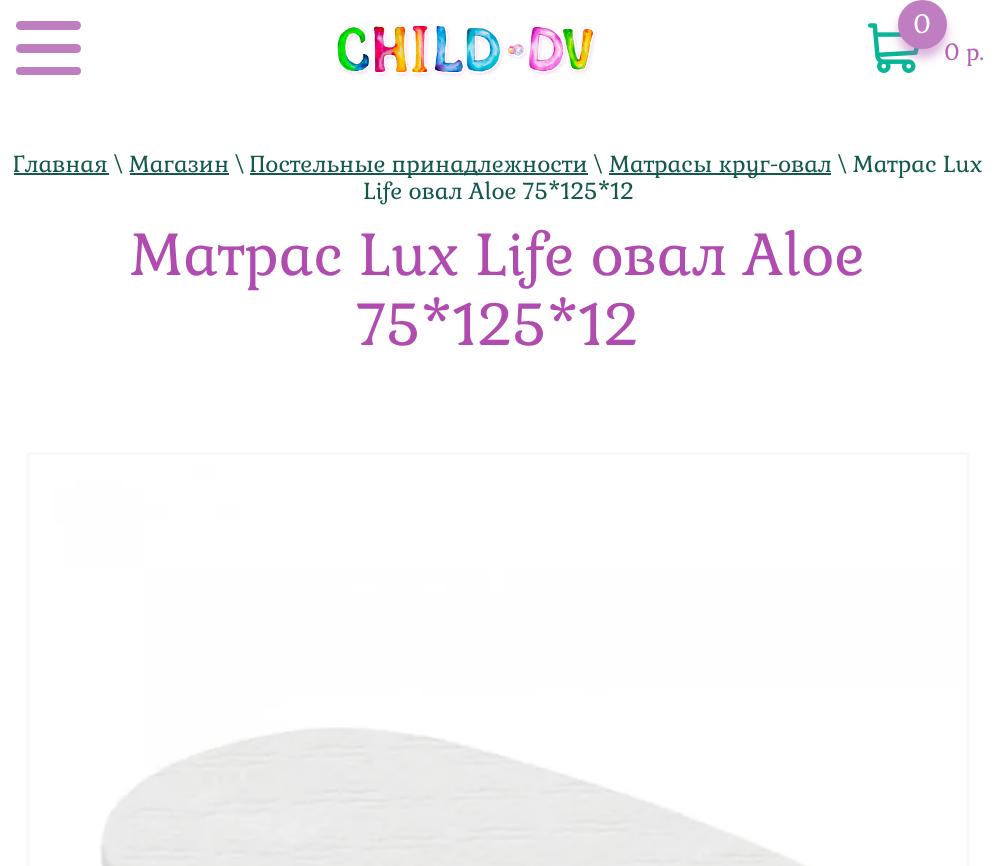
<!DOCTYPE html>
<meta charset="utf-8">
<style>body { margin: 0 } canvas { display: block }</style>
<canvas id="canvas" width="995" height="866"></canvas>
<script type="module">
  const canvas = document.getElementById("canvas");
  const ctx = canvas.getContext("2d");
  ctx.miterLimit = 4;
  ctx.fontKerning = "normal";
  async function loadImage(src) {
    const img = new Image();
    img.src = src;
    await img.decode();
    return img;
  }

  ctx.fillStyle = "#ffffff";
  ctx.fillRect(0, 0, 995, 866);
  ctx.fillStyle = "#bf7ebf";
  ctx.beginPath();
  ctx.roundRect(16, 21, 65, 9, 4.5);
  ctx.fill();
  ctx.beginPath();
  ctx.roundRect(16, 44, 65, 9, 4.5);
  ctx.fill();
  ctx.beginPath();
  ctx.roundRect(16, 67, 65, 8, 4);
  ctx.fill();
  ctx.drawImage(await loadImage("img1.png"), 335, 25, 262, 53);
  ctx.drawImage(await loadImage("img2.png"), 868, 23, 51, 50);
  ctx.fillStyle = "rgba(181, 96, 181, 0.46)";
  ctx.filter = "blur(5px)";
  ctx.beginPath();
  ctx.roundRect(898, 9, 49, 49, 24.5);
  ctx.fill();
  ctx.filter = "none";
  ctx.fillStyle = "#bf7ebf";
  ctx.beginPath();
  ctx.arc(922.5, 24.5, 24.5, 0, Math.PI * 2);
  ctx.fill();
  ctx.font = "26px Gabriela";
  ctx.fillStyle = "#ffffff";
  ctx.fillText("0", 913, 33);
  ctx.font = "22.75px Gabriela";
  ctx.fillStyle = "#b560b5";
  ctx.fillText("0 р.", 944, 60);
  ctx.fillStyle = "#14594d";
  ctx.fillRect(14, 173, 95, 2);
  ctx.fillText("Главная \\ Магазин \\", 13, 172);
  ctx.fillRect(250, 173, 338, 2);
  ctx.fillText("Постельные принадлежности \\", 250, 172);
  ctx.fillRect(609, 173, 222, 2);
  ctx.fillText("Матрасы круг-овал \\ Матрас Lux", 609, 172);
  ctx.fillRect(130, 173, 99, 2);
  ctx.fillText("Life овал Aloe 75*125*12", 363, 199);
  ctx.font = "57.75px Gabriela";
  ctx.fillStyle = "#b04cb0";
  ctx.fillText("Матрас Lux Life овал Aloe", 130, 275);
  ctx.fillText("75*125*12", 357, 345);
  ctx.beginPath();
  ctx.roundRect(28, 454, 940, 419, 3);
  ctx.strokeStyle = "#f9f9f9";
  ctx.lineWidth = 4;
  ctx.stroke();
  ctx.drawImage(await loadImage("img3.png"), 30, 455, 936, 411);
</script>
